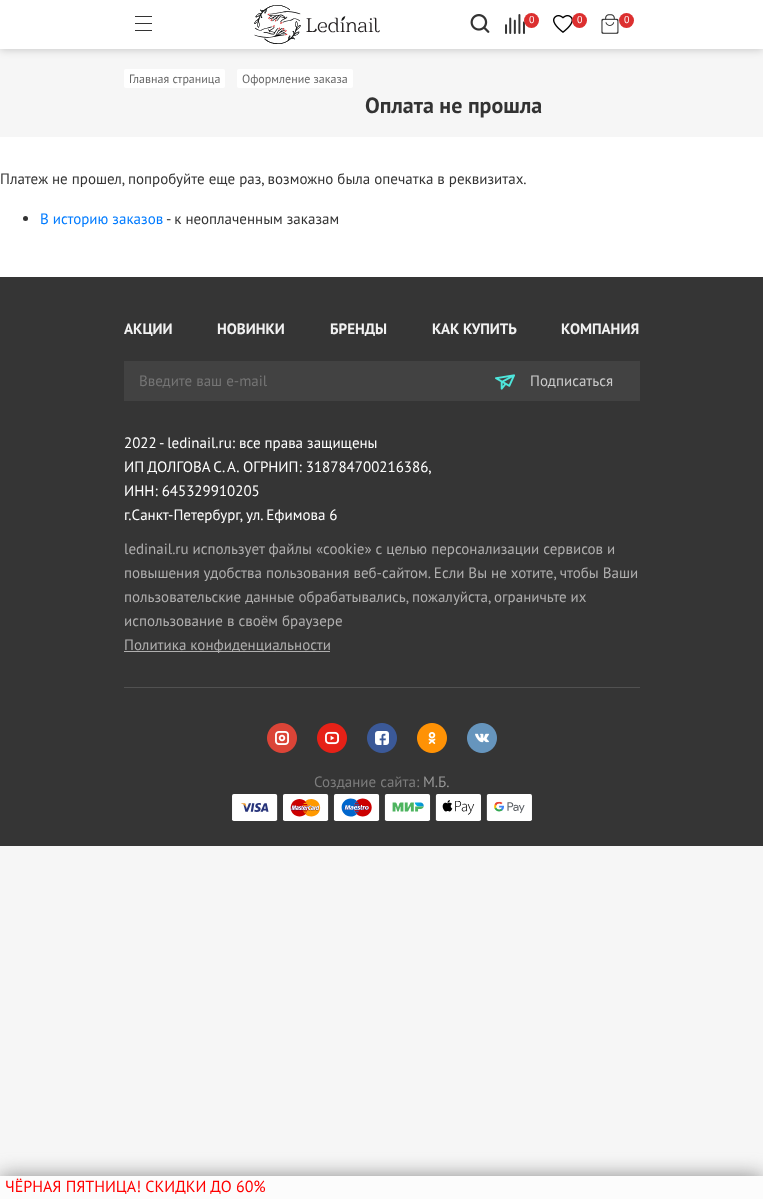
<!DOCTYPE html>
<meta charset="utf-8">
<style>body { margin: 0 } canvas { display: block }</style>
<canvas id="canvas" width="763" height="1199"></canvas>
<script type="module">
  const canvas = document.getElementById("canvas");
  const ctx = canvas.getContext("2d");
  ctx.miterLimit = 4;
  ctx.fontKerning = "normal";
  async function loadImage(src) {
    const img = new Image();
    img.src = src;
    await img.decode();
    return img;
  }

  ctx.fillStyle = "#f6f6f6";
  ctx.fillRect(0, 0, 763, 1199);
  ctx.fillStyle = "rgba(0, 0, 0, 0.22)";
  ctx.filter = "blur(5px)";
  ctx.beginPath();
  ctx.rect(0, 0, 763, 49);
  ctx.fill();
  ctx.filter = "none";
  ctx.fillStyle = "#ffffff";
  ctx.fillRect(0, 0, 763, 49);
  ctx.fillStyle = "#333333";
  ctx.fillRect(135, 16, 17, 1);
  ctx.fillRect(135, 23, 17, 1);
  ctx.fillRect(135, 30, 17, 1);
  ctx.drawImage(await loadImage("img1.png"), 254, 5, 126, 39);
  ctx.drawImage(await loadImage("img2.png"), 470, 14, 20, 19);
  ctx.drawImage(await loadImage("img3.png"), 505, 14, 20, 20);
  ctx.fillStyle = "#dc2f2f";
  ctx.beginPath();
  ctx.arc(531.5, 20.5, 7.5, 0, Math.PI * 2);
  ctx.fill();
  ctx.font = "10px PT Sans";
  ctx.fillStyle = "#ffffff";
  ctx.fillText("0", 529, 23);
  ctx.drawImage(await loadImage("img4.png"), 553, 15, 20, 18);
  ctx.fillStyle = "#dc2f2f";
  ctx.beginPath();
  ctx.arc(579.5, 20.5, 7.5, 0, Math.PI * 2);
  ctx.fill();
  ctx.fillStyle = "#ffffff";
  ctx.fillText("0", 577, 23);
  ctx.drawImage(await loadImage("img5.png"), 601, 14, 18, 20);
  ctx.fillStyle = "#dc2f2f";
  ctx.beginPath();
  ctx.arc(626.5, 20.5, 7.5, 0, Math.PI * 2);
  ctx.fill();
  ctx.fillStyle = "#ffffff";
  ctx.fillText("0", 624, 23);
  ctx.beginPath();
  ctx.roundRect(124, 69, 101, 19, 2);
  ctx.fill();
  ctx.font = "12px PT Sans";
  ctx.fillStyle = "#666666";
  ctx.fillText("Главная страница", 129, 83);
  ctx.fillStyle = "#ffffff";
  ctx.beginPath();
  ctx.roundRect(237, 69, 116, 19, 2);
  ctx.fill();
  ctx.fillStyle = "#666666";
  ctx.fillText("Оформление заказа", 242, 83);
  ctx.font = "bold 22px PT Sans";
  ctx.fillStyle = "#333333";
  ctx.fillText("Оплата не прошла", 365, 113);
  ctx.fillStyle = "#ffffff";
  ctx.fillRect(0, 137, 763, 140);
  ctx.font = "15px PT Sans";
  ctx.fillStyle = "#333333";
  ctx.fillText("Платеж не прошел, попробуйте еще раз, возможно была опечатка в реквизитах.", 0, 184);
  ctx.beginPath();
  ctx.arc(25.5, 218.5, 2.5, 0, Math.PI * 2);
  ctx.fill();
  ctx.fillStyle = "#007bff";
  ctx.fillText("В историю заказов", 40, 224);
  ctx.fillStyle = "#333333";
  ctx.fillText("- к неоплаченным заказам", 166, 224);
  ctx.fillStyle = "#353535";
  ctx.fillRect(0, 277, 763, 569);
  ctx.font = "bold 15px PT Sans";
  ctx.fillStyle = "#f1f1f1";
  ctx.fillText("АКЦИИ", 124, 334);
  ctx.fillText("НОВИНКИ", 217, 334);
  ctx.fillText("БРЕНДЫ", 330, 334);
  ctx.fillText("КАК КУПИТЬ", 432, 334);
  ctx.fillText("КОМПАНИЯ", 561, 334);
  ctx.fillStyle = "#424242";
  ctx.fillRect(124, 361, 516, 40);
  ctx.font = "15px PT Sans";
  ctx.fillStyle = "#757575";
  ctx.fillText("Введите ваш e-mail", 139, 386);
  ctx.drawImage(await loadImage("img6.png"), 495, 374, 20, 16);
  ctx.fillStyle = "#cccccc";
  ctx.fillText("Подписаться", 530, 386);
  ctx.fillStyle = "#ffffff";
  ctx.fillText("2022", 124, 448);
  ctx.fillText("- ledinail.ru: все права защищены", 159, 448);
  ctx.wordSpacing = "-0.5px";
  ctx.fillText("ИП ДОЛГОВА С. А.", 124, 472);
  ctx.wordSpacing = "0px";
  ctx.fillText("ОГРНИП: 318784700216386,", 243, 472);
  ctx.fillText("ИНН: 645329910205", 124, 496);
  ctx.fillText("г.Санкт-Петербург, ул. Ефимова 6", 124, 520);
  ctx.fillStyle = "#b0afaf";
  ctx.fillText("ledinail.ru использует файлы «cookie» с целью персонализации сервисов и", 124, 554);
  ctx.fillText("повышения удобства пользования веб-сайтом. Если Вы не хотите, чтобы Ваши", 124, 578);
  ctx.fillText("пользовательские данные обрабатывались, пожалуйста,", 124, 602);
  ctx.fillText("ограничьте их", 494, 602);
  ctx.fillText("использование в своём браузере", 124, 626);
  ctx.fillRect(124, 651, 206, 1);
  ctx.fillText("Политика конфиденциальности", 124, 650);
  ctx.fillStyle = "#515151";
  ctx.fillRect(124, 687, 516, 1);
  ctx.drawImage(await loadImage("img7.png"), 267, 723, 30, 30);
  ctx.drawImage(await loadImage("img8.png"), 317, 723, 30, 30);
  ctx.drawImage(await loadImage("img9.png"), 367, 723, 30, 30);
  ctx.drawImage(await loadImage("img10.png"), 417, 723, 30, 30);
  ctx.drawImage(await loadImage("img11.png"), 467, 723, 30, 30);
  ctx.fillStyle = "#7d7d7d";
  ctx.fillText("Создание сайта:", 314, 787);
  ctx.fillStyle = "#979797";
  ctx.fillText("М.Б.", 423, 787);
  ctx.drawImage(await loadImage("img12.png"), 232, 794, 300, 27);
  ctx.fillStyle = "#888888";
  ctx.filter = "blur(10px)";
  ctx.beginPath();
  ctx.rect(0, 1176, 763, 23);
  ctx.fill();
  ctx.filter = "none";
  ctx.fillStyle = "#fcfcfc";
  ctx.fillRect(0, 1176, 763, 23);
  ctx.font = "16px PT Sans";
  ctx.fillStyle = "#ff0000";
  ctx.fillText("ЧЁРНАЯ ПЯТНИЦА! СКИДКИ ДО 60%", 5, 1192);
</script>
